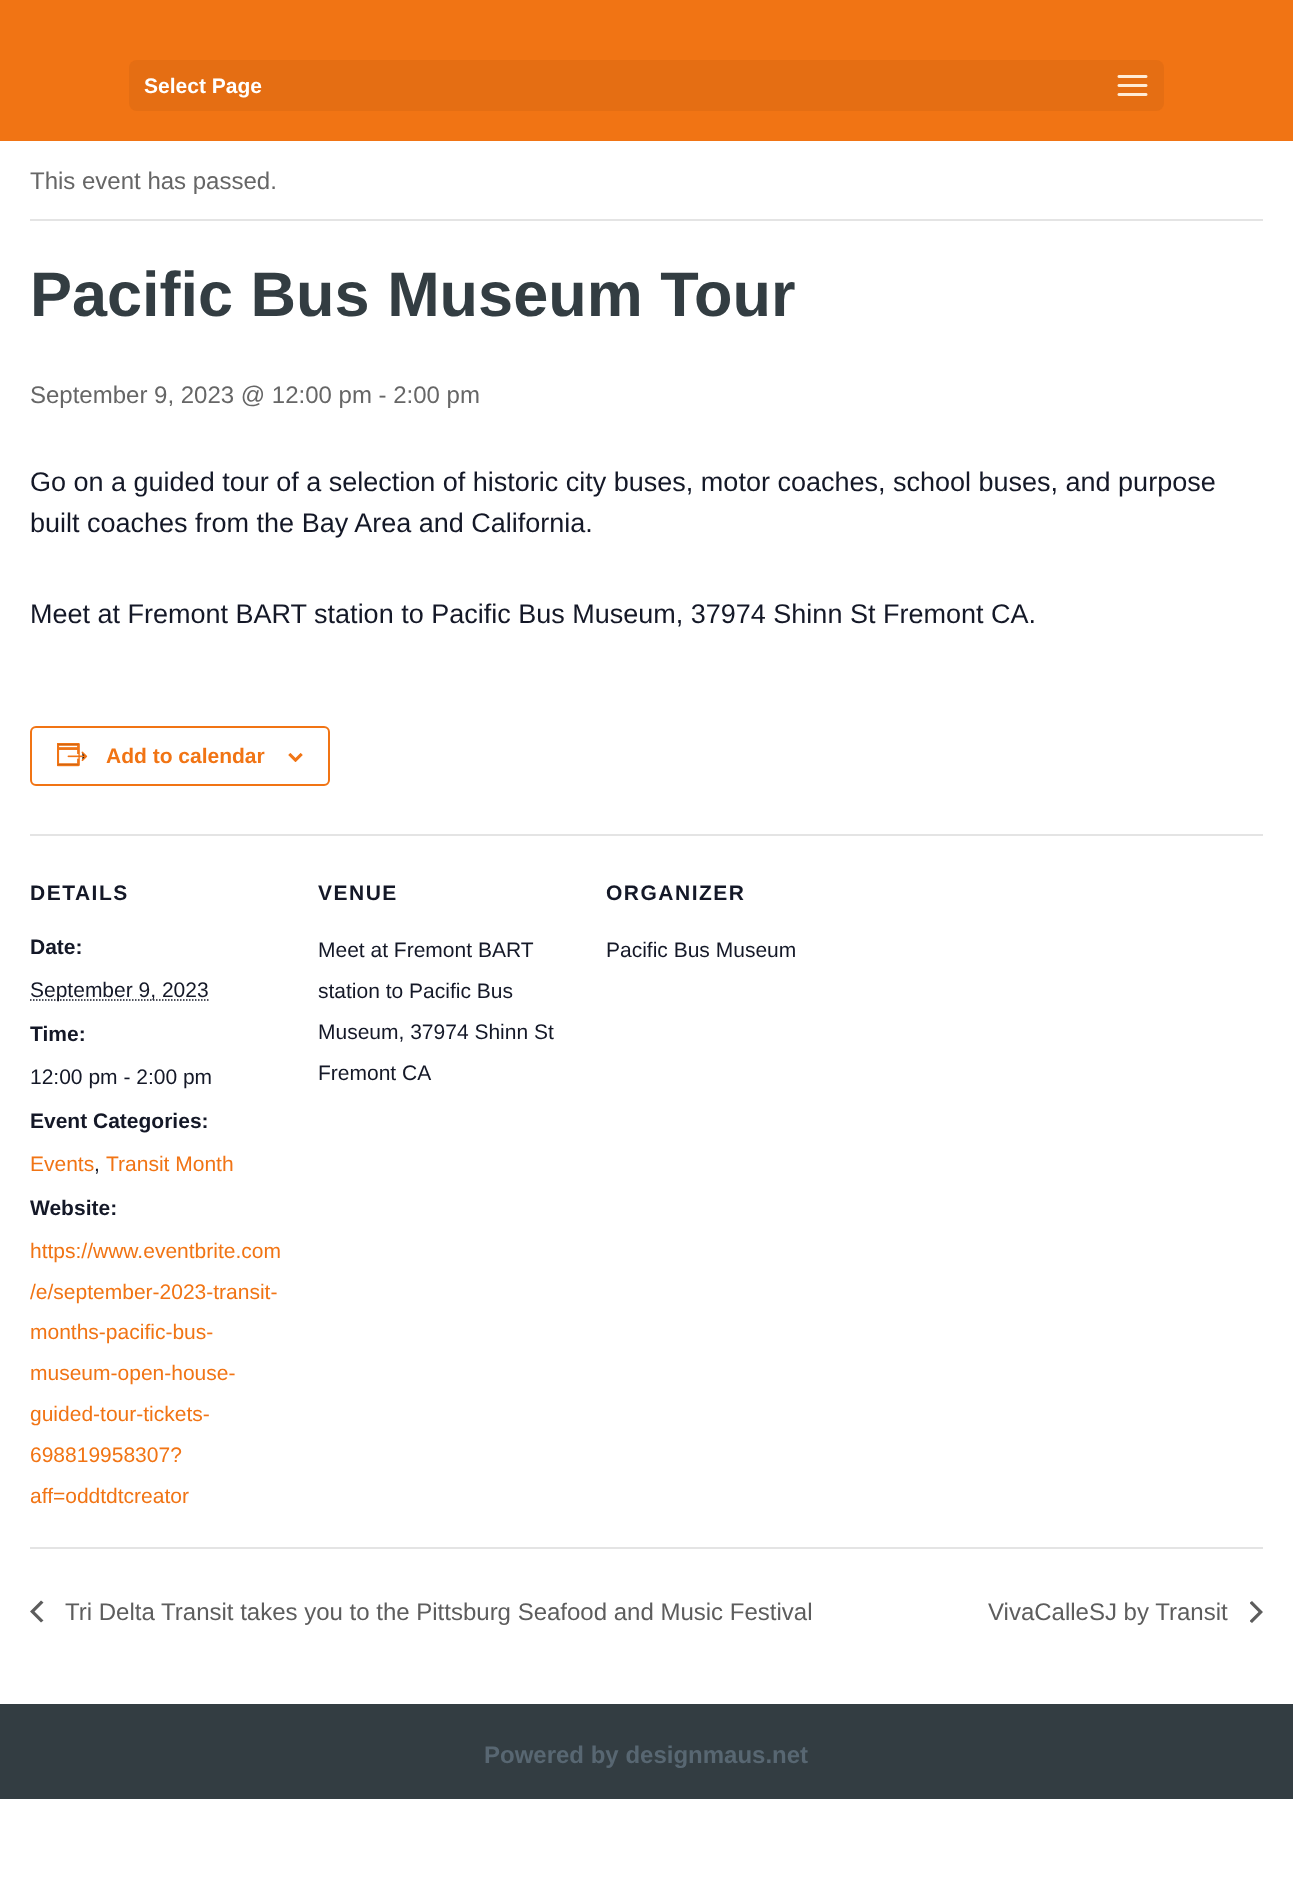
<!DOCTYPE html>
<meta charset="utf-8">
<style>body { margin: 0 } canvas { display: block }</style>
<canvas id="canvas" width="1293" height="1896"></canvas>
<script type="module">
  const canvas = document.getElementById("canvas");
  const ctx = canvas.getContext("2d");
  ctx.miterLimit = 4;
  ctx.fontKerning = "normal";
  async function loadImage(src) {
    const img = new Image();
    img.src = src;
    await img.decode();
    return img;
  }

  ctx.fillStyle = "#ffffff";
  ctx.fillRect(0, 0, 1293, 1896);
  ctx.fillStyle = "#f17414";
  ctx.fillRect(0, 0, 1293, 141);
  ctx.fillStyle = "#e56e13";
  ctx.beginPath();
  ctx.roundRect(129, 60, 1035, 51, 8);
  ctx.fill();
  ctx.font = "bold 21px Liberation Sans";
  ctx.fillStyle = "#ffffff";
  ctx.fillText("Select Page", 144, 93);
  ctx.drawImage(await loadImage("img1.png"), 1117, 75, 31, 21);
  ctx.fillStyle = "#e4e4e4";
  ctx.fillRect(30, 219, 1233, 2);
  ctx.font = "24px Liberation Sans";
  ctx.fillStyle = "#666666";
  ctx.fillText("This event has passed.", 30, 189);
  ctx.font = "bold 63px Liberation Sans";
  ctx.fillStyle = "#333d42";
  ctx.fillText("Pacific Bus Museum Tour", 30, 316);
  ctx.font = "24px Liberation Sans";
  ctx.fillStyle = "#666666";
  ctx.fillText("September 9, 2023 @ 12:00 pm - 2:00 pm", 30, 403);
  ctx.font = "27px Liberation Sans";
  ctx.fillStyle = "#141827";
  ctx.fillText("Go on a guided tour of a selection of historic city buses, motor coaches, school buses, and purpose", 30, 491);
  ctx.fillText("built coaches from the Bay Area and California.", 30, 532);
  ctx.fillText("Meet at Fremont BART station to Pacific Bus Museum, 37974 Shinn St Fremont CA.", 30, 623);
  ctx.beginPath();
  ctx.roundRect(31, 727, 298, 58, 5);
  ctx.strokeStyle = "#f17414";
  ctx.lineWidth = 2;
  ctx.stroke();
  ctx.drawImage(await loadImage("img2.png"), 57, 743, 31, 24);
  ctx.font = "bold 21px Liberation Sans";
  ctx.fillStyle = "#f17414";
  ctx.fillText("Add to calendar", 106, 763);
  ctx.drawImage(await loadImage("img3.png"), 288, 753, 15, 9);
  ctx.fillStyle = "#e4e4e4";
  ctx.fillRect(30, 834, 1233, 2);
  ctx.letterSpacing = "1.5px";
  ctx.fillStyle = "#141827";
  ctx.fillText("DETAILS", 30, 900);
  ctx.letterSpacing = "0px";
  ctx.fillText("Date:", 30, 954);
  ctx.beginPath();
  ctx.moveTo(30, 1000);
  ctx.lineTo(208.5, 1000);
  ctx.strokeStyle = "#141827";
  ctx.lineWidth = 1.5;
  ctx.setLineDash([1.5, 1.5]);
  ctx.stroke();
  ctx.font = "21px Liberation Sans";
  ctx.fillText("September 9, 2023", 30, 997);
  ctx.font = "bold 21px Liberation Sans";
  ctx.fillText("Time:", 30, 1041);
  ctx.font = "21px Liberation Sans";
  ctx.fillText("12:00 pm - 2:00 pm", 30, 1084);
  ctx.font = "bold 21px Liberation Sans";
  ctx.fillText("Event Categories:", 30, 1128);
  ctx.font = "21px Liberation Sans";
  ctx.fillStyle = "#f17414";
  ctx.fillText("Events", 30, 1171);
  ctx.fillStyle = "#141827";
  ctx.fillText(",", 94, 1171);
  ctx.fillStyle = "#f17414";
  ctx.fillText("Transit Month", 106, 1171);
  ctx.font = "bold 21px Liberation Sans";
  ctx.fillStyle = "#141827";
  ctx.fillText("Website:", 30, 1215);
  ctx.font = "21px Liberation Sans";
  ctx.fillStyle = "#f17414";
  ctx.fillText("https://www.eventbrite.com", 30, 1258);
  ctx.fillText("/e/september-2023-transit-", 30, 1299);
  ctx.fillText("months-pacific-bus-", 30, 1339);
  ctx.fillText("museum-open-house-", 30, 1380);
  ctx.fillText("guided-tour-tickets-", 30, 1421);
  ctx.fillText("698819958307?", 30, 1462);
  ctx.fillText("aff=oddtdtcreator", 30, 1503);
  ctx.letterSpacing = "1.5px";
  ctx.font = "bold 21px Liberation Sans";
  ctx.fillStyle = "#141827";
  ctx.fillText("VENUE", 318, 900);
  ctx.letterSpacing = "0px";
  ctx.font = "21px Liberation Sans";
  ctx.fillText("Meet at Fremont BART", 318, 957);
  ctx.fillText("station to Pacific Bus", 318, 998);
  ctx.fillText("Museum, 37974 Shinn St", 318, 1039);
  ctx.fillText("Fremont CA", 318, 1080);
  ctx.letterSpacing = "1.5px";
  ctx.font = "bold 21px Liberation Sans";
  ctx.fillText("ORGANIZER", 606, 900);
  ctx.letterSpacing = "0px";
  ctx.font = "21px Liberation Sans";
  ctx.fillText("Pacific Bus Museum", 606, 957);
  ctx.fillStyle = "#e4e4e4";
  ctx.fillRect(30, 1547, 1233, 2);
  ctx.fillStyle = "#5d5d5d";
  ctx.beginPath();
  ctx.moveTo(43.5, 1620.5);
  ctx.lineTo(41, 1622.5);
  ctx.lineTo(30, 1611.5);
  ctx.lineTo(41, 1600.5);
  ctx.lineTo(43.5, 1602.5);
  ctx.lineTo(34.5, 1611.5);
  ctx.closePath();
  ctx.fill();
  ctx.font = "24px Liberation Sans";
  ctx.fillText("Tri Delta Transit takes you to the Pittsburg Seafood and Music Festival", 65, 1620);
  ctx.fillText("VivaCalleSJ by Transit", 988, 1620);
  ctx.save();
  ctx.beginPath();
  ctx.rect(1250, 1601, 13, 22);
  ctx.clip();
  ctx.beginPath();
  ctx.moveTo(1249.5, 1603);
  ctx.lineTo(1252, 1601);
  ctx.lineTo(1263, 1612);
  ctx.lineTo(1252, 1623);
  ctx.lineTo(1249.5, 1621);
  ctx.lineTo(1258.5, 1612);
  ctx.closePath();
  ctx.fill();
  ctx.restore();
  ctx.fillStyle = "#333d42";
  ctx.fillRect(0, 1704, 1293, 95);
  ctx.font = "bold 24px Liberation Sans";
  ctx.fillStyle = "#586772";
  ctx.fillText("Powered by designmaus.net", 484, 1763);
</script>
